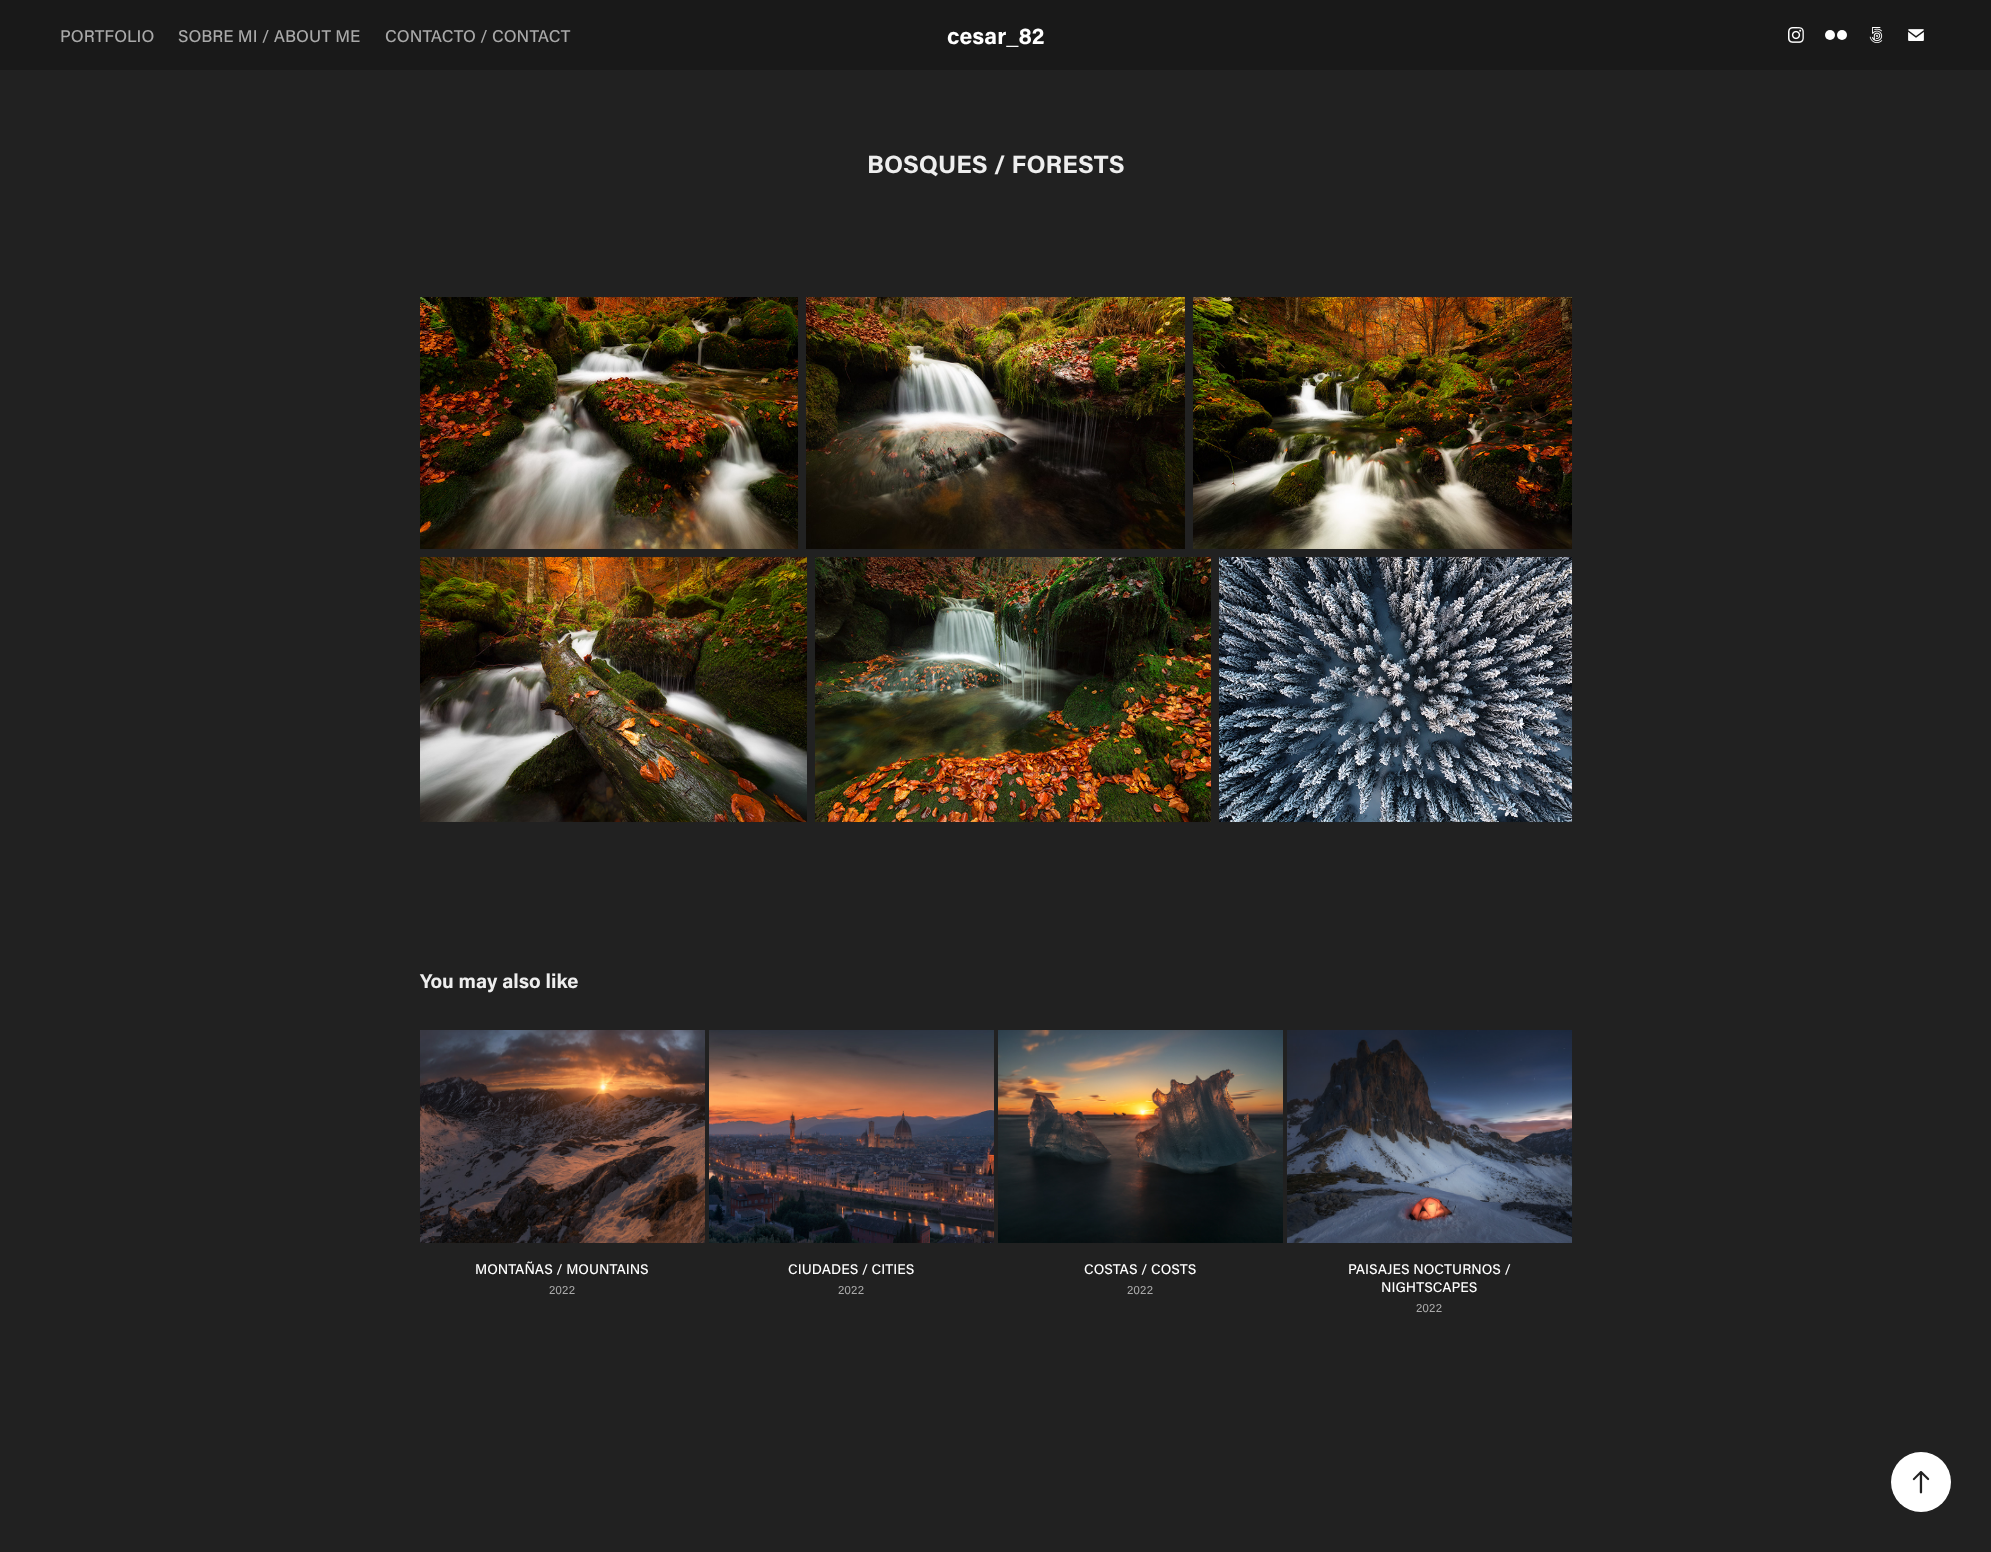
<!DOCTYPE html>
<meta charset="utf-8">
<style>body { margin: 0 } canvas { display: block }</style>
<canvas id="canvas" width="1991" height="1552"></canvas>
<script type="module">
  const canvas = document.getElementById("canvas");
  const ctx = canvas.getContext("2d");
  ctx.miterLimit = 4;
  ctx.fontKerning = "normal";
  async function loadImage(src) {
    const img = new Image();
    img.src = src;
    await img.decode();
    return img;
  }

  ctx.fillStyle = "#212121";
  ctx.fillRect(0, 0, 1991, 1552);
  ctx.fillStyle = "#191919";
  ctx.fillRect(0, 0, 1991, 70);
  ctx.font = "500 17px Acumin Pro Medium";
  ctx.fillStyle = "#a9a9a9";
  ctx.fillText("PORTFOLIO", 60, 42);
  ctx.fillText("SOBRE MI / ABOUT ME", 178, 42);
  ctx.fillText("CONTACTO / CONTACT", 385, 42);
  ctx.font = "bold 23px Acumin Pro";
  ctx.fillStyle = "#ffffff";
  ctx.fillText("cesar_82", 947, 44);
  ctx.drawImage(await loadImage("img1.png"), 1788, 27, 16, 16);
  ctx.beginPath();
  ctx.arc(1830, 35, 5, 0, Math.PI * 2);
  ctx.fill();
  ctx.beginPath();
  ctx.arc(1842, 35, 5, 0, Math.PI * 2);
  ctx.fill();
  ctx.drawImage(await loadImage("img2.png"), 1869, 27, 14, 16);
  ctx.drawImage(await loadImage("img3.png"), 1908, 29, 16, 12);
  ctx.font = "bold 25px Acumin Pro";
  ctx.fillStyle = "#eeeeee";
  ctx.fillText("BOSQUES / FORESTS", 867, 173);
  ctx.drawImage(await loadImage("img4.png"), 420, 297, 378, 252);
  ctx.drawImage(await loadImage("img5.png"), 806, 297, 379, 252);
  ctx.drawImage(await loadImage("img6.png"), 1193, 297, 379, 252);
  ctx.drawImage(await loadImage("img7.png"), 420, 557, 387, 265);
  ctx.drawImage(await loadImage("img8.png"), 815, 557, 396, 265);
  ctx.drawImage(await loadImage("img9.png"), 1219, 557, 353, 265);
  ctx.font = "bold 20px Acumin Pro";
  ctx.fillText("You may also like", 420, 988);
  ctx.drawImage(await loadImage("img10.png"), 420, 1030, 285, 213);
  ctx.font = "500 14px Acumin Pro Medium";
  ctx.fillStyle = "#ffffff";
  ctx.fillText("MONTAÑAS / MOUNTAINS", 475, 1274);
  ctx.font = "12px Acumin Pro";
  ctx.fillStyle = "#a9a9a9";
  ctx.fillText("2022", 549, 1294);
  ctx.drawImage(await loadImage("img11.png"), 709, 1030, 285, 213);
  ctx.font = "500 14px Acumin Pro Medium";
  ctx.fillStyle = "#ffffff";
  ctx.fillText("CIUDADES / CITIES", 788, 1274);
  ctx.font = "12px Acumin Pro";
  ctx.fillStyle = "#a9a9a9";
  ctx.fillText("2022", 838, 1294);
  ctx.drawImage(await loadImage("img12.png"), 998, 1030, 285, 213);
  ctx.font = "500 14px Acumin Pro Medium";
  ctx.fillStyle = "#ffffff";
  ctx.fillText("COSTAS / COSTS", 1084, 1274);
  ctx.font = "12px Acumin Pro";
  ctx.fillStyle = "#a9a9a9";
  ctx.fillText("2022", 1127, 1294);
  ctx.drawImage(await loadImage("img13.png"), 1287, 1030, 285, 213);
  ctx.font = "500 14px Acumin Pro Medium";
  ctx.fillStyle = "#ffffff";
  ctx.fillText("PAISAJES NOCTURNOS /", 1348, 1274);
  ctx.fillText("NIGHTSCAPES", 1381, 1292);
  ctx.font = "12px Acumin Pro";
  ctx.fillStyle = "#a9a9a9";
  ctx.fillText("2022", 1416, 1312);
  ctx.fillStyle = "#ffffff";
  ctx.beginPath();
  ctx.arc(1921, 1482, 30, 0, Math.PI * 2);
  ctx.fill();
  ctx.drawImage(await loadImage("img14.png"), 1912, 1471, 18, 23);
</script>
